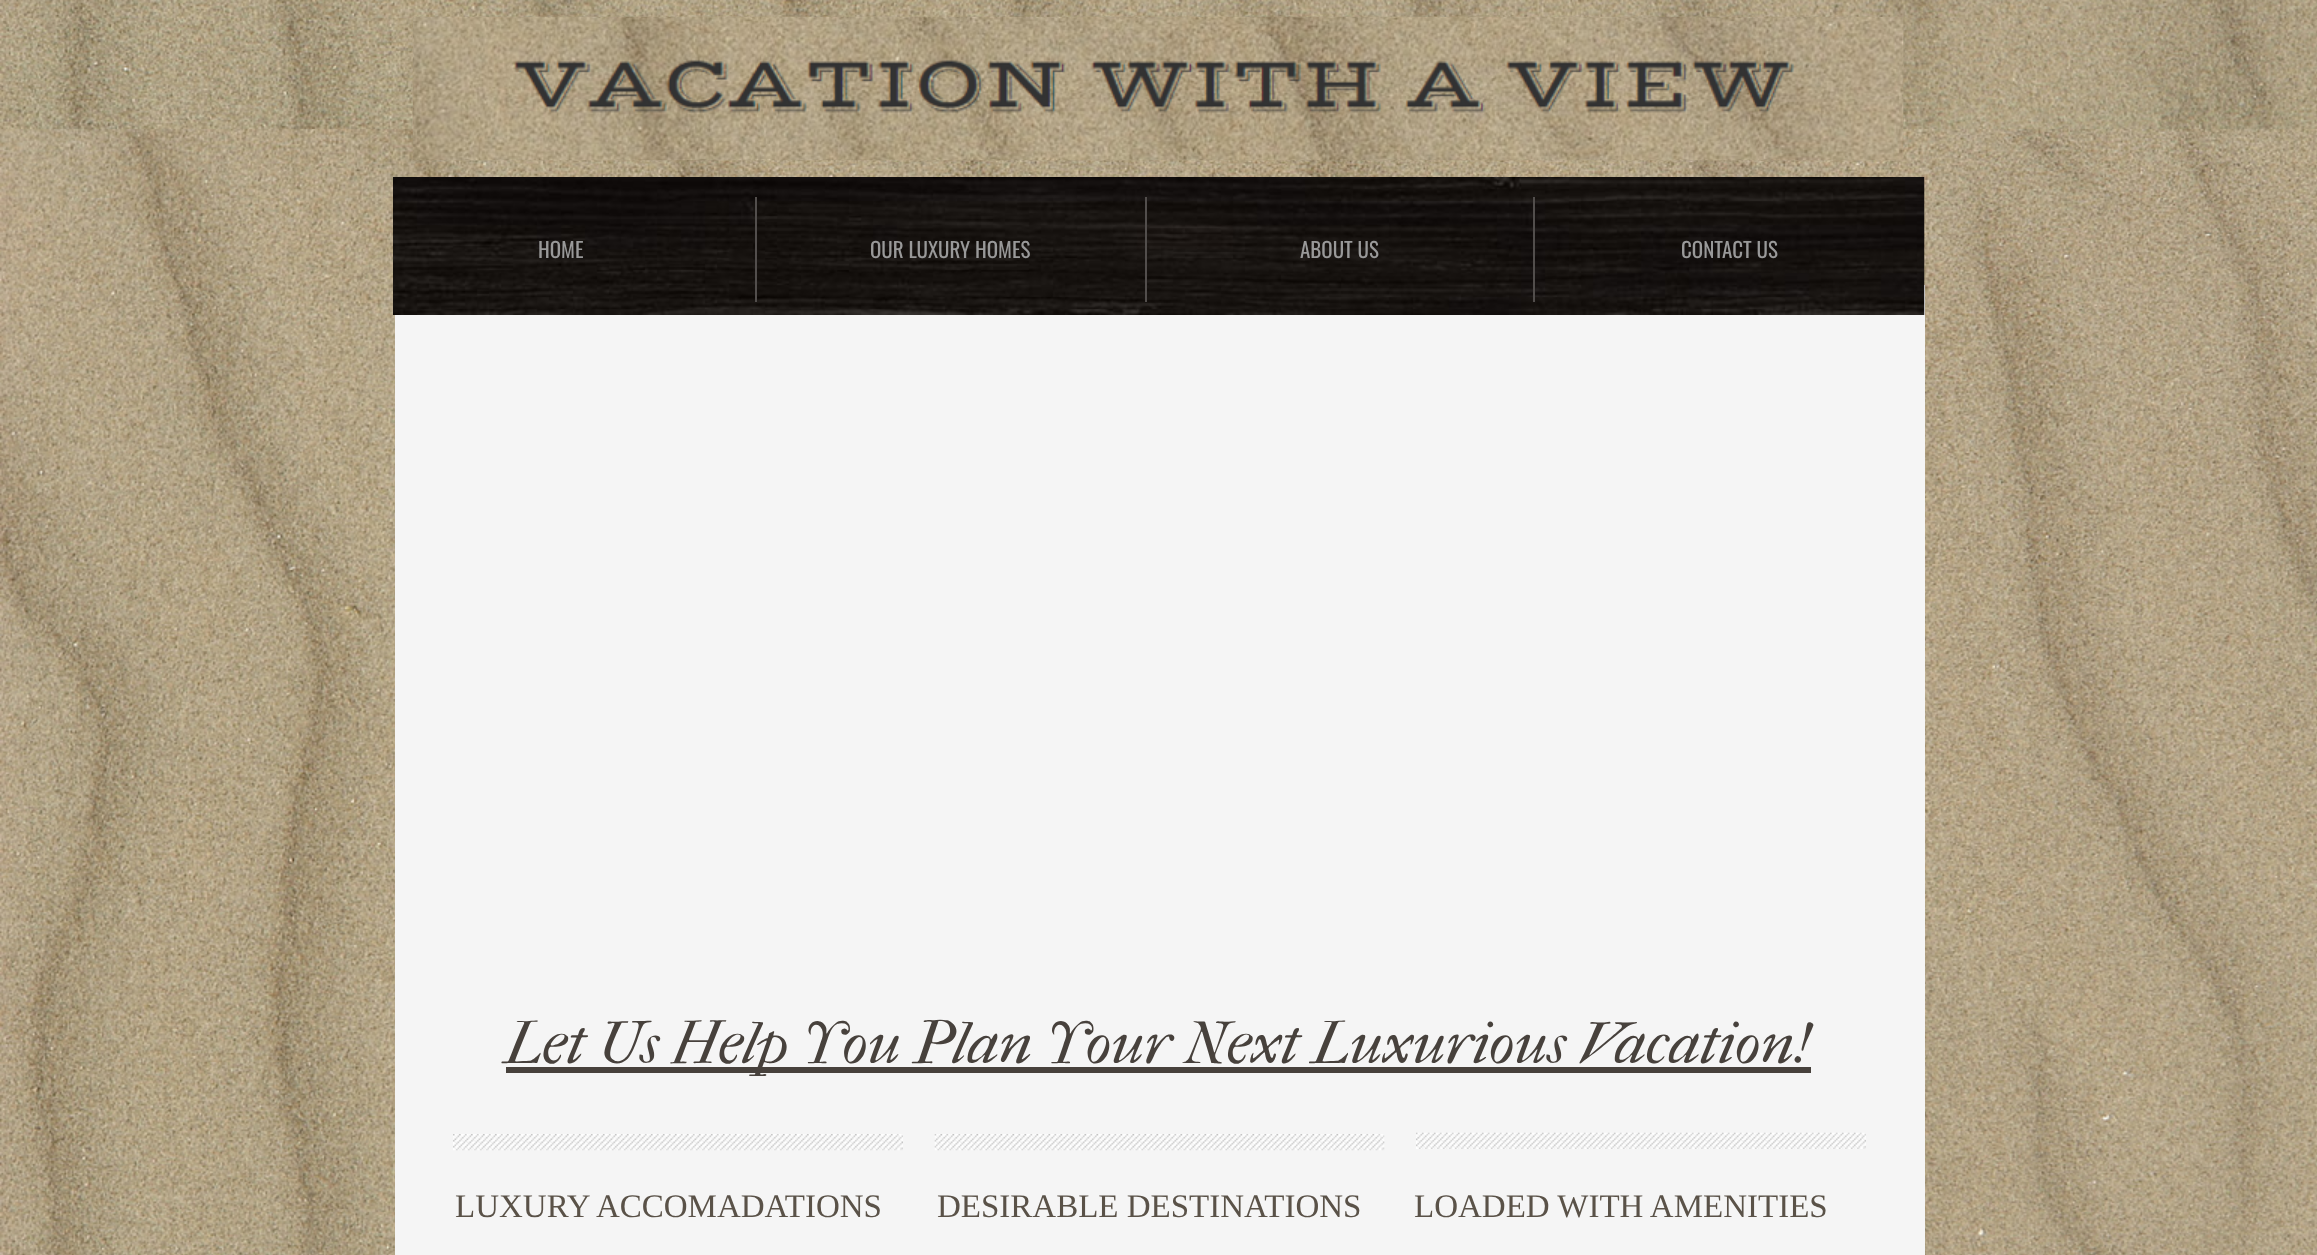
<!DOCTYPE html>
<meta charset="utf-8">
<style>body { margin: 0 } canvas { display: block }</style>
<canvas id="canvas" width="2317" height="1255"></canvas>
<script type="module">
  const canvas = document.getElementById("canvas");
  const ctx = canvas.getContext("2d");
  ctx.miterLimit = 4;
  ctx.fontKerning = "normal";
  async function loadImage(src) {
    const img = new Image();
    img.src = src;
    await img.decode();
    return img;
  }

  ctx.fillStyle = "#ffffff";
  ctx.fillRect(0, 0, 2317, 1255);
  ctx.drawImage(await loadImage("img1.png"), 0, 0, 2317, 1255);
  ctx.fillStyle = "#f5f5f5";
  ctx.fillRect(395, 285, 1530, 970);
  ctx.drawImage(await loadImage("img2.png"), 412, 16, 1492, 145);
  ctx.drawImage(await loadImage("img3.png"), 393, 177, 1532, 138);
  ctx.fillStyle = "#524e4c";
  ctx.fillRect(755, 197, 2, 105);
  ctx.font = "21px Oswald";
  ctx.fillStyle = "#999999";
  ctx.fillText("HOME", 538, 258);
  ctx.fillStyle = "#524e4c";
  ctx.fillRect(1145, 197, 2, 105);
  ctx.fillStyle = "#999999";
  ctx.fillText("OUR LUXURY HOMES", 870, 258);
  ctx.fillStyle = "#524e4c";
  ctx.fillRect(1533, 197, 2, 105);
  ctx.fillStyle = "#999999";
  ctx.fillText("ABOUT US", 1300, 258);
  ctx.fillText("CONTACT US", 1681, 258);
  ctx.fillStyle = "#47413c";
  ctx.fillRect(506, 1067, 1305, 6);
  ctx.font = "italic 60px IM FELL French Canon";
  ctx.fillText("Let Us Help You Plan Your Next Luxurious Vacation!", 505, 1063);
  ctx.drawImage(await loadImage("img4.png"), 453, 1134, 450, 17);
  ctx.drawImage(await loadImage("img5.png"), 934, 1134, 451, 17);
  ctx.drawImage(await loadImage("img6.png"), 1416, 1132, 450, 17);
  ctx.font = "33px Liberation Serif";
  ctx.fillStyle = "#5a5248";
  ctx.fillText("LUXURY ACCOMADATIONS", 455, 1217);
  ctx.fillText("DESIRABLE DESTINATIONS", 937, 1217);
  ctx.fillText("LOADED WITH AMENITIES", 1414, 1217);
</script>
